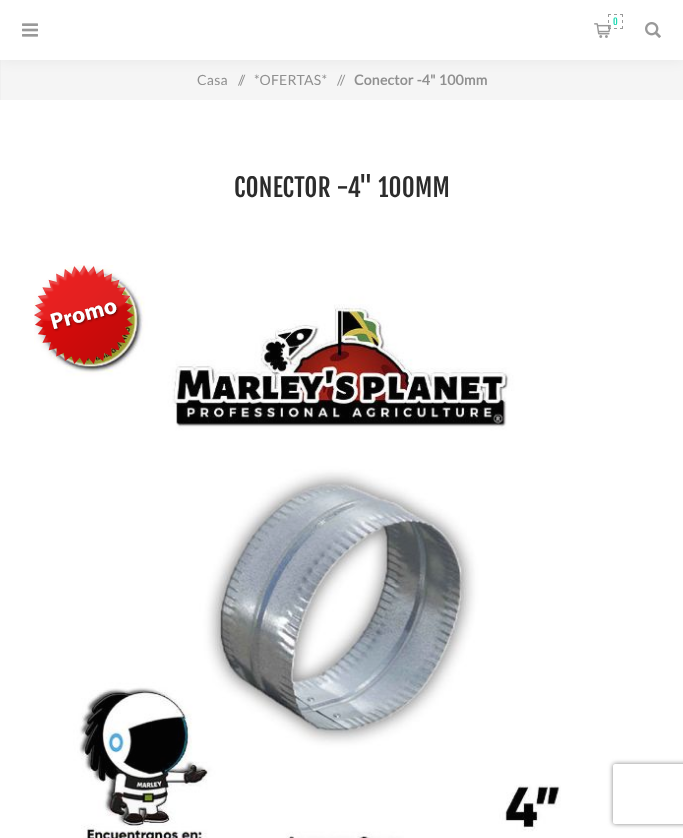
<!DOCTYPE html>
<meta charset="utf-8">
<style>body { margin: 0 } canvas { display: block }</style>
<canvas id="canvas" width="683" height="838"></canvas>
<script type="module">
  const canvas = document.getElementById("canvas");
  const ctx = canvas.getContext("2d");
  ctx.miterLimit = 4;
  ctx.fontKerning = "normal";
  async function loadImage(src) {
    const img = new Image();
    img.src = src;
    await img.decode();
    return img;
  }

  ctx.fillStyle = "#f0f0f0";
  ctx.fillRect(0, 0, 683, 838);
  ctx.fillStyle = "#f5f5f5";
  ctx.fillRect(1, 60, 682, 40);
  ctx.fillStyle = "rgba(0, 0, 0, 0.06)";
  ctx.filter = "blur(7px)";
  ctx.beginPath();
  ctx.rect(0, 0, 683, 60);
  ctx.fill();
  ctx.filter = "none";
  ctx.fillStyle = "#ffffff";
  ctx.fillRect(0, 0, 683, 60);
  ctx.drawImage(await loadImage("img1.png"), 22, 23, 16, 14);
  ctx.drawImage(await loadImage("img2.png"), 594, 23, 17, 15);
  ctx.beginPath();
  ctx.moveTo(608, 14.5);
  ctx.lineTo(611, 14.5);
  ctx.moveTo(614, 14.5);
  ctx.lineTo(617, 14.5);
  ctx.moveTo(620, 14.5);
  ctx.lineTo(623, 14.5);
  ctx.moveTo(622.5, 14);
  ctx.lineTo(622.5, 17);
  ctx.moveTo(622.5, 20);
  ctx.lineTo(622.5, 23);
  ctx.moveTo(622.5, 26);
  ctx.lineTo(622.5, 29);
  ctx.moveTo(608, 28.5);
  ctx.lineTo(611, 28.5);
  ctx.moveTo(614, 28.5);
  ctx.lineTo(617, 28.5);
  ctx.moveTo(620, 28.5);
  ctx.lineTo(623, 28.5);
  ctx.moveTo(608.5, 14);
  ctx.lineTo(608.5, 17);
  ctx.moveTo(608.5, 20);
  ctx.lineTo(608.5, 23);
  ctx.moveTo(608.5, 26);
  ctx.lineTo(608.5, 29);
  ctx.strokeStyle = "#999999";
  ctx.stroke();
  ctx.letterSpacing = "0.25px";
  ctx.font = "9px Fjalla One";
  ctx.fillStyle = "#19d7b1";
  ctx.fillText("0", 613, 25);
  ctx.drawImage(await loadImage("img3.png"), 645, 22, 16, 16);
  ctx.font = "14px Lato";
  ctx.fillStyle = "#909090";
  ctx.fillText("Casa", 197, 85);
  ctx.letterSpacing = "-2px";
  ctx.fillText("/", 238, 85);
  ctx.fillText("/", 240, 85);
  ctx.letterSpacing = "0.25px";
  ctx.fillText("*OFERTAS*", 254, 85);
  ctx.letterSpacing = "-2px";
  ctx.fillText("/", 337, 85);
  ctx.fillText("/", 340, 85);
  ctx.letterSpacing = "0.25px";
  ctx.font = "bold 14px Lato";
  ctx.fillText("Conector -4\" 100mm", 354, 85);
  ctx.fillStyle = "#ffffff";
  ctx.fillRect(0, 100, 683, 738);
  ctx.font = "25px Fjalla One";
  ctx.fillStyle = "#2c2c2c";
  ctx.fillText("CONECTOR -4\" 100MM", 234, 197);
  ctx.drawImage(await loadImage("img4.png"), 34, 265, 527, 573);
  ctx.drawImage(await loadImage("img5.png"), 34, 265, 100, 100);
  ctx.save();
  ctx.beginPath();
  ctx.moveTo(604, 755);
  ctx.lineTo(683, 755);
  ctx.lineTo(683, 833);
  ctx.lineTo(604, 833);
  ctx.closePath();
  ctx.moveTo(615, 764);
  ctx.lineTo(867, 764);
  ctx.bezierCurveTo(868, 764, 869, 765, 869, 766);
  ctx.lineTo(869, 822);
  ctx.bezierCurveTo(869, 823, 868, 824, 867, 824);
  ctx.lineTo(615, 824);
  ctx.bezierCurveTo(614, 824, 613, 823, 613, 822);
  ctx.lineTo(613, 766);
  ctx.bezierCurveTo(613, 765, 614, 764, 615, 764);
  ctx.closePath();
  ctx.clip("evenodd");
  ctx.fillStyle = "#808080";
  ctx.filter = "blur(2.5px)";
  ctx.beginPath();
  ctx.roundRect(613, 764, 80, 60, 2);
  ctx.fill();
  ctx.filter = "none";
  ctx.restore();
</script>
